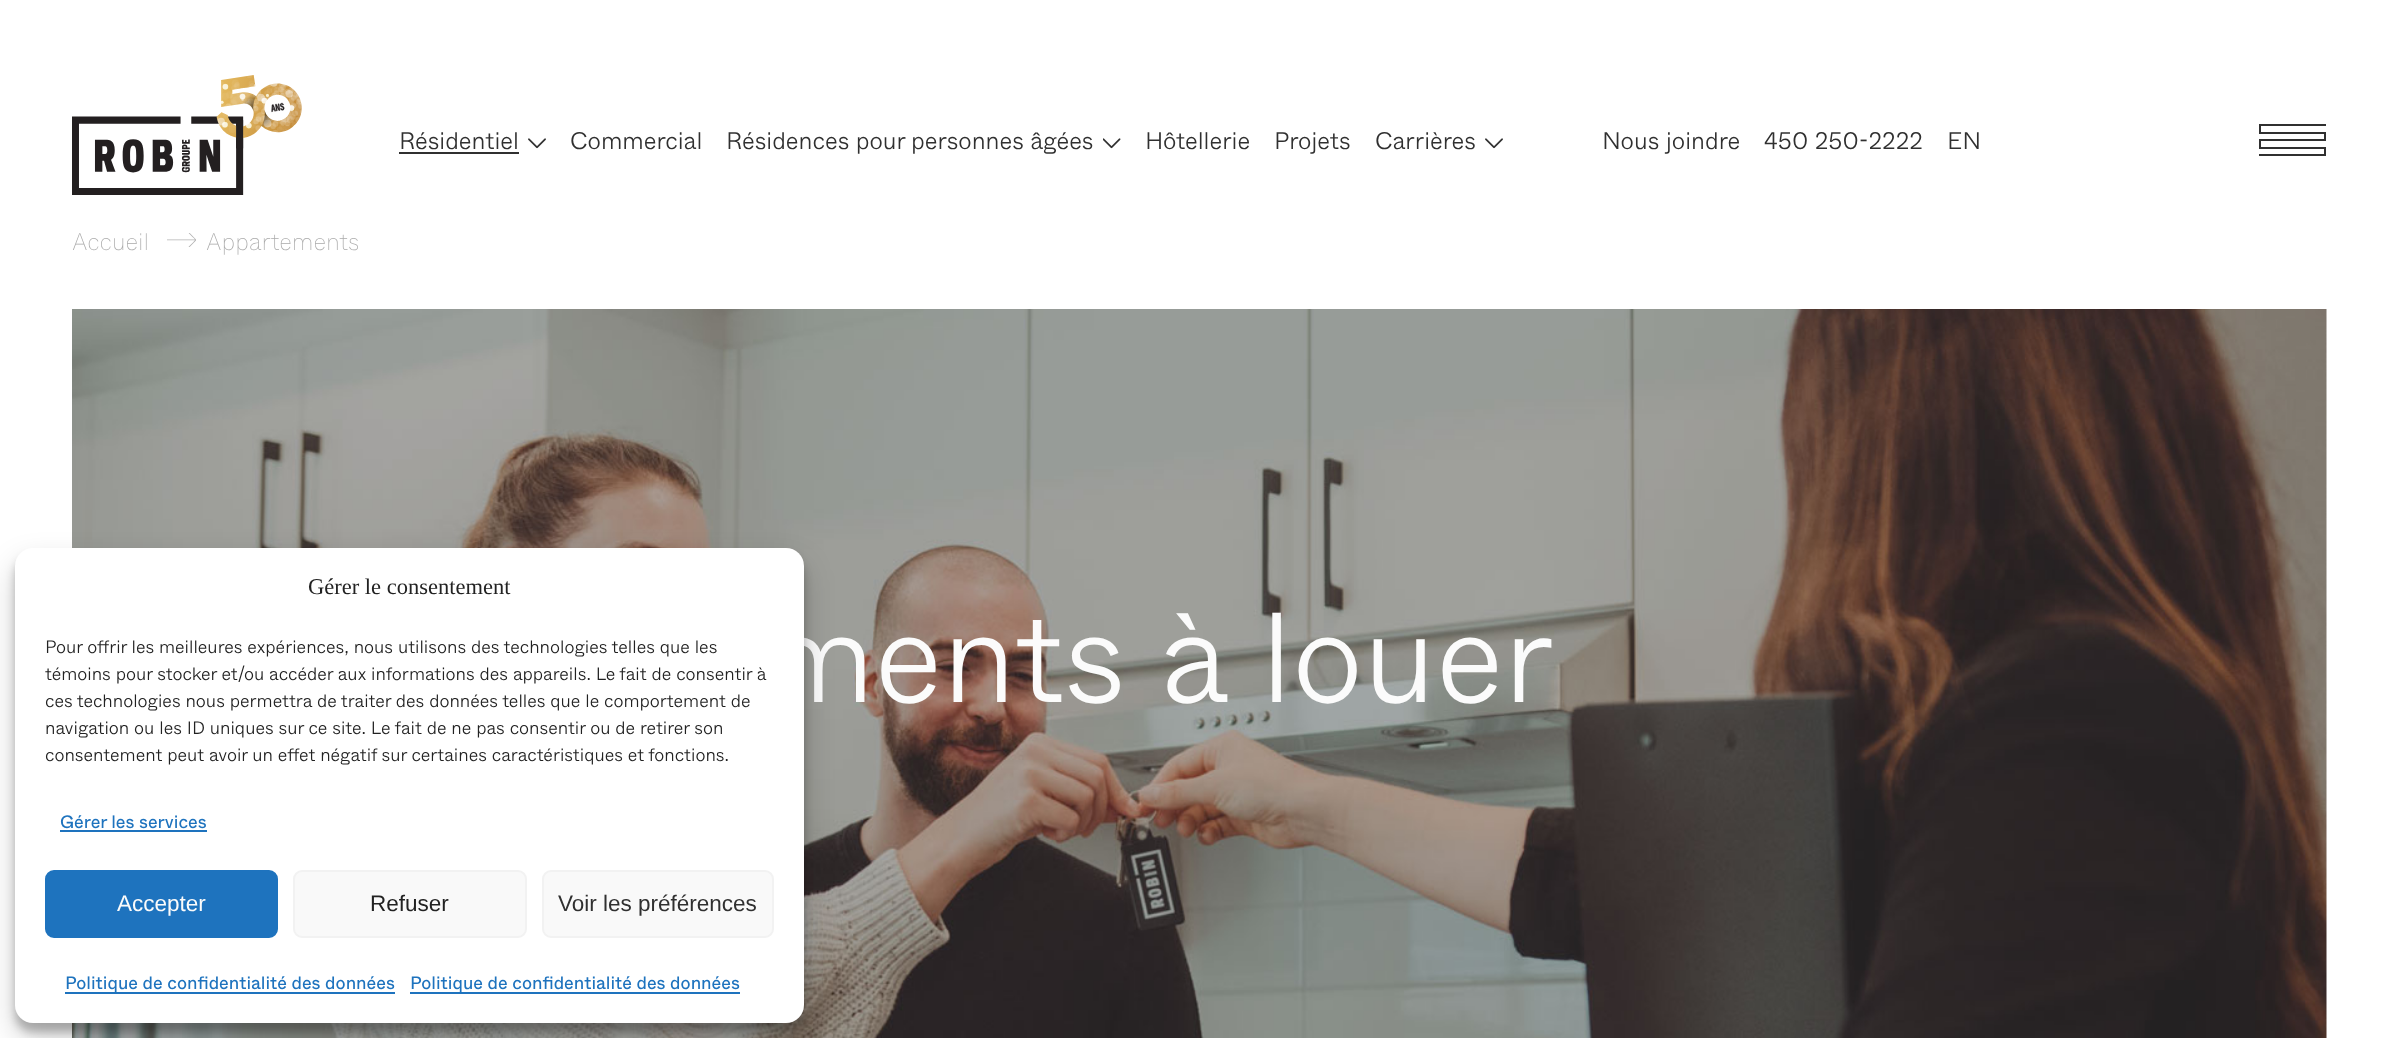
<!DOCTYPE html>
<meta charset="utf-8">
<style>body { margin: 0 } canvas { display: block }</style>
<canvas id="canvas" width="2398" height="1038"></canvas>
<script type="module">
  const canvas = document.getElementById("canvas");
  const ctx = canvas.getContext("2d");
  ctx.miterLimit = 4;
  ctx.fontKerning = "normal";
  async function loadImage(src) {
    const img = new Image();
    img.src = src;
    await img.decode();
    return img;
  }

  ctx.fillStyle = "#ffffff";
  ctx.fillRect(0, 0, 2398, 1038);
  ctx.drawImage(await loadImage("img1.png"), 72, 75, 230, 120);
  ctx.font = "300 24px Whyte";
  ctx.fillStyle = "#303030";
  ctx.fillText("Résidentiel", 399, 149);
  ctx.fillRect(399, 152, 120, 2);
  ctx.drawImage(await loadImage("img2.png"), 528, 138, 18, 11);
  ctx.fillText("Commercial", 570, 149);
  ctx.fillText("Résidences pour personnes âgées", 726, 149);
  ctx.drawImage(await loadImage("img3.png"), 1103, 138, 18, 11);
  ctx.fillText("Hôtellerie", 1145, 149);
  ctx.fillText("Projets", 1274, 149);
  ctx.fillText("Carrières", 1375, 149);
  ctx.drawImage(await loadImage("img2.png"), 1485, 138, 18, 11);
  ctx.fillText("Nous joindre", 1602, 149);
  ctx.fillText("450 250-2222", 1764, 149);
  ctx.fillText("EN", 1947, 149);
  ctx.beginPath();
  ctx.moveTo(2326, 156);
  ctx.lineTo(2259, 156);
  ctx.lineTo(2259, 154);
  ctx.lineTo(2324, 154);
  ctx.lineTo(2324, 149);
  ctx.lineTo(2259, 149);
  ctx.lineTo(2259, 139);
  ctx.lineTo(2324, 139);
  ctx.lineTo(2324, 134);
  ctx.lineTo(2259, 134);
  ctx.lineTo(2259, 124);
  ctx.lineTo(2326, 124);
  ctx.lineTo(2326, 126);
  ctx.lineTo(2261, 126);
  ctx.lineTo(2261, 132);
  ctx.lineTo(2326, 132);
  ctx.lineTo(2326, 141);
  ctx.lineTo(2261, 141);
  ctx.lineTo(2261, 147);
  ctx.lineTo(2326, 147);
  ctx.closePath();
  ctx.fill();
  ctx.font = "100 24px Whyte";
  ctx.fillStyle = "#aaaaaa";
  ctx.fillText("Accueil", 72, 250);
  ctx.drawImage(await loadImage("img4.png"), 167, 233, 29, 14);
  ctx.fillText("Appartements", 206, 250);
  ctx.drawImage(await loadImage("img5.png"), 72, 309, 2255, 729);
  ctx.font = "300 127.5px Whyte";
  ctx.fillStyle = "#fbfbfb";
  ctx.fillText("ments à louer", 761, 702);
  ctx.fillStyle = "rgba(0, 0, 0, 0.23)";
  ctx.filter = "blur(4.5px)";
  ctx.beginPath();
  ctx.roundRect(15, 557, 789, 475, 18);
  ctx.fill();
  ctx.filter = "none";
  ctx.fillStyle = "rgba(0, 0, 0, 0.19)";
  ctx.filter = "blur(15px)";
  ctx.beginPath();
  ctx.roundRect(15, 563, 789, 475, 18);
  ctx.fill();
  ctx.filter = "none";
  ctx.fillStyle = "#ffffff";
  ctx.beginPath();
  ctx.roundRect(15, 548, 789, 475, 18);
  ctx.fill();
  ctx.font = "22.5px Liberation Serif";
  ctx.fillStyle = "#222222";
  ctx.fillText("Gérer le consentement", 308, 594);
  ctx.font = "300 18px Whyte";
  ctx.fillText("Pour offrir les meilleures expériences, nous utilisons des technologies telles que les", 45, 653);
  ctx.fillText("témoins pour stocker et/ou accéder aux informations des appareils. Le fait de consentir à", 45, 680);
  ctx.fillText("ces technologies nous permettra de traiter des données telles que le comportement de", 45, 707);
  ctx.fillText("navigation ou les ID uniques sur ce site. Le fait de ne pas consentir ou de retirer son", 45, 734);
  ctx.fillText("consentement peut avoir un effet négatif sur certaines caractéristiques et fonctions.", 45, 761);
  ctx.font = "18px Whyte";
  ctx.fillStyle = "#1e73be";
  ctx.fillText("Gérer les services", 60, 828);
  ctx.fillRect(60, 830, 147, 2);
  ctx.beginPath();
  ctx.roundRect(46, 871, 231, 66, 8);
  ctx.fill();
  ctx.strokeStyle = "#1e73be";
  ctx.lineWidth = 2;
  ctx.stroke();
  ctx.font = "22.5px Liberation Sans";
  ctx.fillStyle = "#fbfbfb";
  ctx.fillText("Accepter", 117, 911);
  ctx.fillStyle = "#f9f9f9";
  ctx.beginPath();
  ctx.roundRect(294, 871, 232, 66, 8);
  ctx.fill();
  ctx.strokeStyle = "#f2f2f2";
  ctx.stroke();
  ctx.fillStyle = "#222222";
  ctx.fillText("Refuser", 370, 911);
  ctx.fillStyle = "#f9f9f9";
  ctx.beginPath();
  ctx.roundRect(543, 871, 230, 66, 8);
  ctx.fill();
  ctx.stroke();
  ctx.fillStyle = "#303030";
  ctx.fillText("Voir les préférences", 558, 911);
  ctx.fillStyle = "#1e73be";
  ctx.fillRect(65, 992, 330, 2);
  ctx.font = "18px Whyte";
  ctx.fillText("Politique de confidentialité des données", 65, 989);
  ctx.fillRect(410, 992, 330, 2);
  ctx.fillText("Politique de confidentialité des données", 410, 989);
</script>
